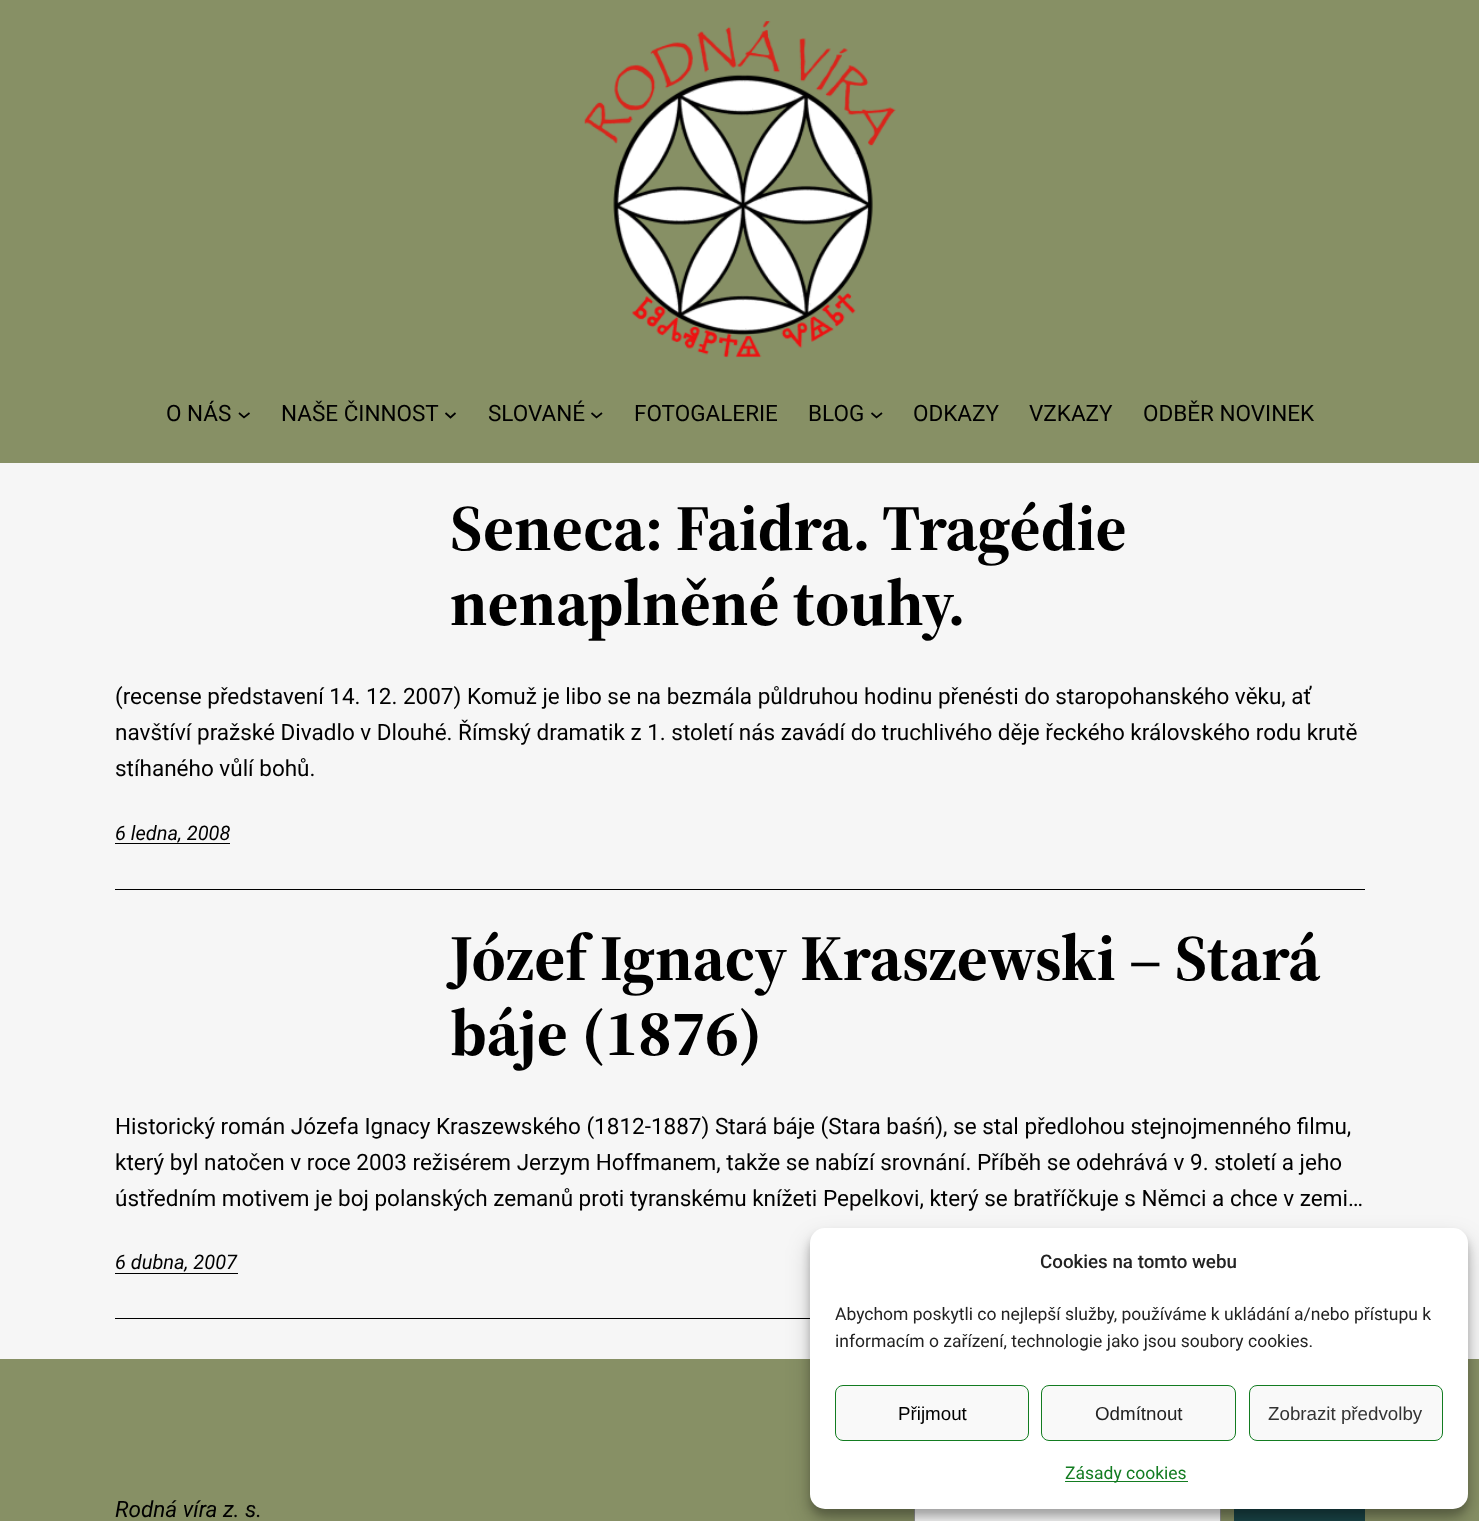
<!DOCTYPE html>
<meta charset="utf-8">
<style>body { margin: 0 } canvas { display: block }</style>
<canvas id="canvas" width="1479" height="1521"></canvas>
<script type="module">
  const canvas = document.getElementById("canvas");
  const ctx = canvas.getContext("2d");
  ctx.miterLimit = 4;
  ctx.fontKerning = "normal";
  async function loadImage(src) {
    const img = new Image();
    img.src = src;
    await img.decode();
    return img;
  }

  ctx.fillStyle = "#879065";
  ctx.fillRect(0, 0, 1479, 1521);
  ctx.drawImage(await loadImage("img1.png"), 584, 21, 312, 337);
  ctx.font = "22.5px Roboto";
  ctx.fillStyle = "#000000";
  ctx.fillText("O NÁS", 166, 421);
  ctx.beginPath();
  ctx.moveTo(239, 413);
  ctx.lineTo(244, 417.5);
  ctx.lineTo(249.5, 413);
  ctx.strokeStyle = "#000000";
  ctx.lineWidth = 1.7;
  ctx.stroke();
  ctx.fillText("NAŠE ČINNOST", 281, 421);
  ctx.beginPath();
  ctx.moveTo(445.5, 413);
  ctx.lineTo(450.5, 417.5);
  ctx.lineTo(455.5, 413);
  ctx.stroke();
  ctx.fillText("SLOVANÉ", 488, 421);
  ctx.beginPath();
  ctx.moveTo(591.5, 413);
  ctx.lineTo(596.5, 417.5);
  ctx.lineTo(602, 413);
  ctx.stroke();
  ctx.fillText("FOTOGALERIE", 634, 421);
  ctx.fillText("BLOG", 808, 421);
  ctx.beginPath();
  ctx.moveTo(871.5, 413);
  ctx.lineTo(876.5, 417.5);
  ctx.lineTo(882, 413);
  ctx.stroke();
  ctx.fillText("ODKAZY", 913, 421);
  ctx.fillText("VZKAZY", 1029, 421);
  ctx.fillText("ODBĚR NOVINEK", 1143, 421);
  ctx.fillStyle = "#f6f6f6";
  ctx.fillRect(0, 463, 1479, 896);
  ctx.font = "bold 65px 'Source Serif 4'";
  ctx.fillStyle = "#000000";
  ctx.fillText("Seneca: Faidra. Tragédie", 450, 550);
  ctx.fillText("nenaplněné touhy.", 450, 625);
  ctx.font = "22.5px Roboto";
  ctx.fillText("(recense představení 14. 12. 2007) Komuž je libo se na bezmála půldruhou hodinu přenésti do staropohanského věku, ať", 115, 704);
  ctx.fillText("navštíví pražské Divadlo v Dlouhé. Římský dramatik z 1. století nás zavádí do truchlivého děje řeckého královského rodu krutě", 115, 740);
  ctx.fillText("stíhaného vůlí bohů.", 115, 776);
  ctx.font = "italic 20px Roboto";
  ctx.fillText("6 ledna, 2008", 115, 840);
  ctx.fillRect(115, 843, 115, 1);
  ctx.fillRect(115, 889, 1250, 1);
  ctx.font = "bold 65px 'Source Serif 4'";
  ctx.fillText("Józef Ignacy Kraszewski – Stará", 450, 980);
  ctx.fillText("báje (1876)", 450, 1055);
  ctx.font = "22.5px Roboto";
  ctx.fillText("Historický román Józefa Ignacy Kraszewského (1812-1887) Stará báje (Stara baśń), se stal předlohou stejnojmenného filmu,", 115, 1134);
  ctx.fillText("který byl natočen v roce 2003 režisérem Jerzym Hoffmanem, takže se nabízí srovnání. Příběh se odehrává v 9. století a jeho", 115, 1170);
  ctx.fillText("ústředním motivem je boj polanských zemanů proti tyranskému knížeti Pepelkovi, který se bratříčkuje s Němci a chce v zemi…", 115, 1206);
  ctx.font = "italic 20px Roboto";
  ctx.fillText("6 dubna, 2007", 115, 1269);
  ctx.fillRect(115, 1273, 123, 1);
  ctx.fillRect(115, 1318, 695, 1);
  ctx.font = "italic 22.5px Roboto";
  ctx.fillText("Rodná víra z. s.", 115, 1517);
  ctx.fillStyle = "#ffffff";
  ctx.fillRect(915, 1509, 305, 12);
  ctx.strokeStyle = "#949494";
  ctx.lineWidth = 1;
  ctx.strokeRect(914.5, 1475.5, 306, 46);
  ctx.fillStyle = "#1a4548";
  ctx.fillRect(1234, 1509, 131, 12);
  ctx.fillStyle = "rgba(0, 0, 0, 0.23)";
  ctx.filter = "blur(4px)";
  ctx.beginPath();
  ctx.roundRect(810, 1235, 658, 281, 15);
  ctx.fill();
  ctx.filter = "none";
  ctx.fillStyle = "rgba(0, 0, 0, 0.19)";
  ctx.filter = "blur(12.5px)";
  ctx.beginPath();
  ctx.roundRect(810, 1240, 658, 281, 15);
  ctx.fill();
  ctx.filter = "none";
  ctx.fillStyle = "#ffffff";
  ctx.beginPath();
  ctx.roundRect(810, 1228, 658, 281, 15);
  ctx.fill();
  ctx.font = "500 18.75px Roboto";
  ctx.fillStyle = "#222222";
  ctx.fillText("Cookies na tomto webu", 1040, 1268);
  ctx.font = "17.5px Roboto";
  ctx.fillText("Abychom poskytli co nejlepší služby, používáme k ukládání a/nebo přístupu k", 835, 1320);
  ctx.fillText("informacím o zařízení, technologie jako jsou soubory cookies.", 835, 1347);
  ctx.fillStyle = "#f9f9f9";
  ctx.beginPath();
  ctx.roundRect(835.5, 1385.5, 193, 55, 7.5);
  ctx.fill();
  ctx.strokeStyle = "#137c21";
  ctx.stroke();
  ctx.font = "18.75px Liberation Sans";
  ctx.fillStyle = "#000000";
  ctx.fillText("Přijmout", 898, 1420);
  ctx.fillStyle = "#f9f9f9";
  ctx.beginPath();
  ctx.roundRect(1041.5, 1385.5, 194, 55, 7.5);
  ctx.fill();
  ctx.stroke();
  ctx.fillStyle = "#222222";
  ctx.fillText("Odmítnout", 1095, 1420);
  ctx.fillStyle = "#f9f9f9";
  ctx.beginPath();
  ctx.roundRect(1249.5, 1385.5, 193, 55, 7.5);
  ctx.fill();
  ctx.stroke();
  ctx.fillStyle = "#333333";
  ctx.fillText("Zobrazit předvolby", 1268, 1420);
  ctx.fillStyle = "#137c21";
  ctx.fillRect(1065, 1481, 123, 1);
  ctx.font = "17.5px Roboto";
  ctx.fillText("Zásady cookies", 1065, 1479);
</script>
